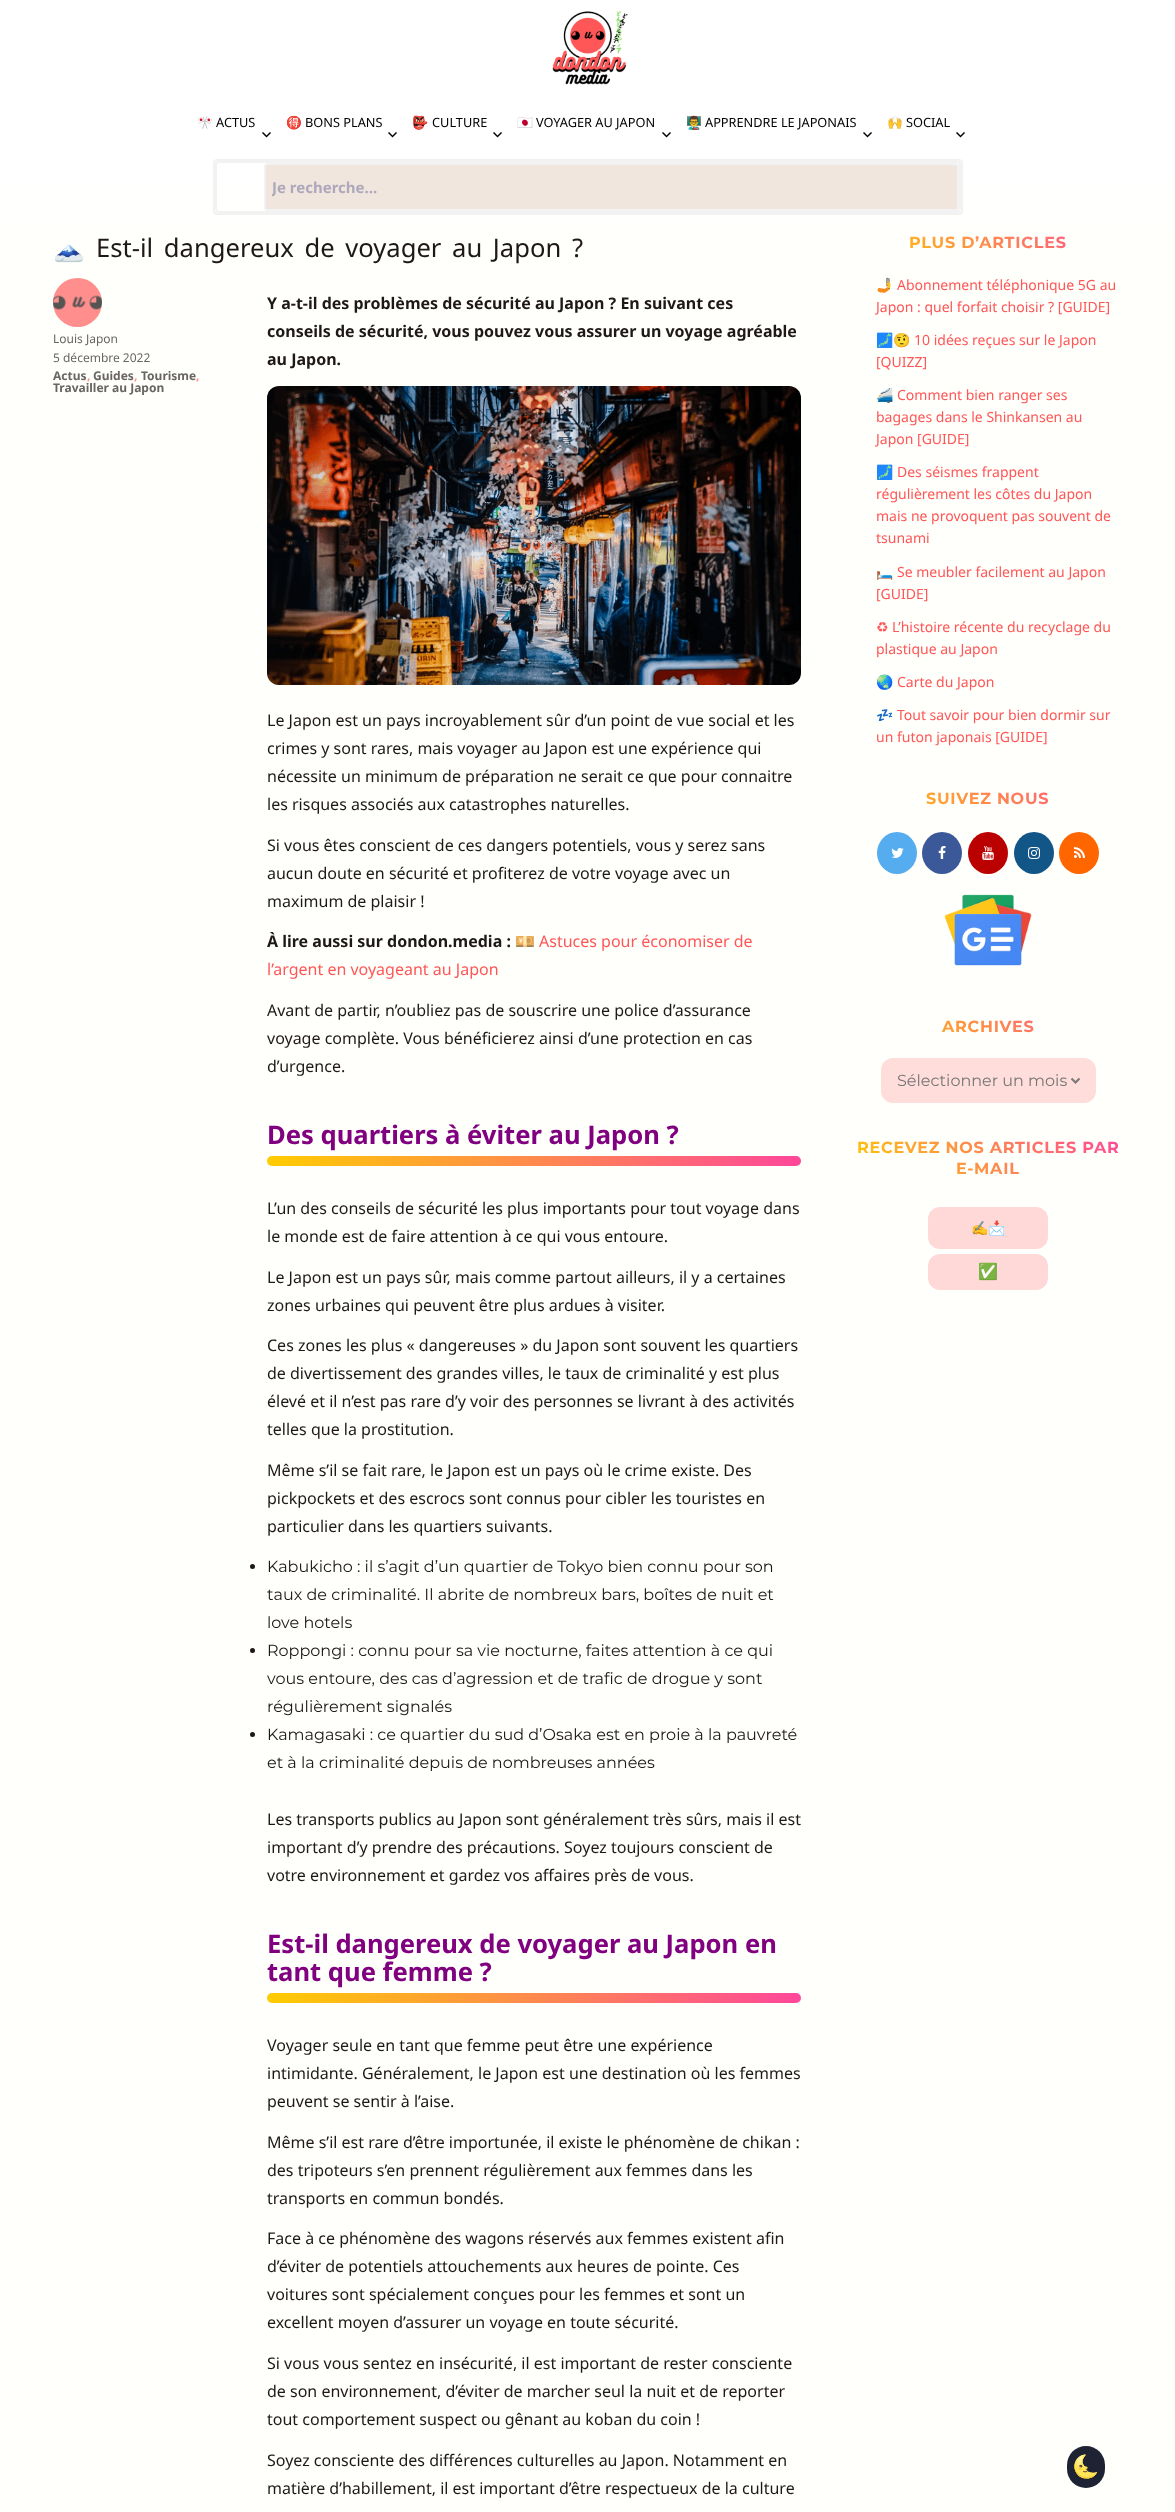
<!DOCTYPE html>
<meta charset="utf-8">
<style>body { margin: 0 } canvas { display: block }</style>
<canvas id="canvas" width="1175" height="2512"></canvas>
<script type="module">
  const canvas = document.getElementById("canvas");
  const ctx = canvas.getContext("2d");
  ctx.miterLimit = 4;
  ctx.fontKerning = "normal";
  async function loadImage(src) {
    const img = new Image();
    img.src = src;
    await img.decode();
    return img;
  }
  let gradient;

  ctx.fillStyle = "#fffffc";
  ctx.fillRect(0, 0, 1175, 2512);
  ctx.font = "25.6px Noto Color Emoji";
  ctx.fillStyle = "#1e1918";
  ctx.fillText("🗻", 53, 257);
  ctx.wordSpacing = "4px";
  ctx.font = "25.6px Noto Sans";
  ctx.fillText("Est-il dangereux de voyager au Japon ?", 96, 257);
  ctx.letterSpacing = "0.75px";
  ctx.wordSpacing = "0px";
  ctx.font = "100 16px Montserrat";
  gradient = ctx.createLinearGradient(916, 314, 1060, 170);
  gradient.addColorStop(0, "#ffcc00");
  gradient.addColorStop(1, "#ff479a");
  ctx.fillStyle = gradient;
  ctx.fillText("PLUS D’ARTICLES", 909, 248);
  gradient = ctx.createLinearGradient(588, 0, 588, 240);
  gradient.addColorStop(0, "#ffffff");
  gradient.addColorStop(0.75, "#ffffff");
  gradient.addColorStop(1, "rgba(255, 255, 255, 0)");
  ctx.fillStyle = gradient;
  ctx.fillRect(0, 0, 1175, 239);
  ctx.drawImage(await loadImage("img1.png"), 552, 11, 76, 74);
  ctx.letterSpacing = "0px";
  ctx.font = "12.75px Noto Color Emoji";
  ctx.fillStyle = "#000000";
  ctx.fillText("🎌", 197, 127);
  ctx.font = "12.75px Noto Sans";
  ctx.fillText("ACTUS", 216, 127);
  ctx.drawImage(await loadImage("img2.png"), 262, 132, 9, 6);
  ctx.font = "12.75px Noto Color Emoji";
  ctx.fillText("🉐", 286, 127);
  ctx.font = "12.75px Noto Sans";
  ctx.fillText("BONS PLANS", 305, 127);
  ctx.drawImage(await loadImage("img2.png"), 388, 132, 9, 6);
  ctx.font = "12.75px Noto Color Emoji";
  ctx.fillText("👺", 412, 127);
  ctx.font = "12.75px Noto Sans";
  ctx.fillText("CULTURE", 432, 127);
  ctx.drawImage(await loadImage("img2.png"), 493, 132, 9, 6);
  ctx.font = "12.75px Noto Color Emoji";
  ctx.fillText("🇯🇵", 517, 127);
  ctx.font = "12.75px Noto Sans";
  ctx.fillText("VOYAGER AU JAPON", 536, 127);
  ctx.drawImage(await loadImage("img2.png"), 662, 132, 9, 6);
  ctx.font = "12.75px Noto Color Emoji";
  ctx.fillText("👨‍🏫", 686, 127);
  ctx.font = "12.75px Noto Sans";
  ctx.fillText("APPRENDRE LE JAPONAIS", 705, 127);
  ctx.drawImage(await loadImage("img2.png"), 863, 132, 9, 6);
  ctx.font = "12.75px Noto Color Emoji";
  ctx.fillText("🙌", 887, 127);
  ctx.font = "12.75px Noto Sans";
  ctx.fillText("SOCIAL", 906, 127);
  ctx.drawImage(await loadImage("img2.png"), 956, 132, 9, 6);
  ctx.beginPath();
  ctx.roundRect(214, 160, 748, 54, 3);
  ctx.strokeStyle = "#f2f2f1";
  ctx.lineWidth = 2;
  ctx.stroke();
  ctx.beginPath();
  ctx.roundRect(216, 162, 744, 50, 3);
  ctx.strokeStyle = "#f2f2f2";
  ctx.stroke();
  ctx.beginPath();
  ctx.roundRect(265, 164, 693, 46, 3);
  ctx.stroke();
  ctx.fillStyle = "#f0e6de";
  ctx.beginPath();
  ctx.roundRect(266, 165, 691, 44, 1);
  ctx.fill();
  ctx.save();
  ctx.beginPath();
  ctx.rect(272, 177, 675, 20);
  ctx.clip();
  ctx.font = "bold 15px Noto Sans";
  ctx.fillStyle = "#ada8bb";
  ctx.fillText("Je recherche...", 272, 193);
  ctx.restore();
  ctx.fillStyle = "#1e2334";
  ctx.beginPath();
  ctx.roundRect(1067, 2446, 38, 42, 19);
  ctx.fill();
  ctx.letterSpacing = "1px";
  ctx.font = "bold 22px Noto Color Emoji";
  ctx.fillStyle = "#ffffff";
  ctx.fillText("🌜", 1072, 2474);
  ctx.drawImage(await loadImage("img3.png"), 53, 278, 49, 49);
  ctx.letterSpacing = "0px";
  ctx.font = "12px Noto Sans";
  ctx.fillStyle = "#686563";
  ctx.fillText("Louis Japon", 53, 343);
  ctx.fillText("5 décembre 2022", 53, 362);
  ctx.font = "bold 12px Noto Sans";
  ctx.fillText("Actus", 53, 380);
  ctx.fillStyle = "#ff8e8d";
  ctx.fillText(",", 87, 380);
  ctx.fillStyle = "#686563";
  ctx.fillText("Guides", 93, 380);
  ctx.fillStyle = "#ff8e8d";
  ctx.fillText(",", 134, 380);
  ctx.fillStyle = "#686563";
  ctx.fillText("Tourisme", 141, 380);
  ctx.fillStyle = "#ff8e8d";
  ctx.fillText(",", 196, 380);
  ctx.fillStyle = "#686563";
  ctx.fillText("Travailler au Japon", 53, 392);
  ctx.font = "bold 16px Noto Sans";
  ctx.fillStyle = "#1e1918";
  ctx.fillText("Y a-t-il des problèmes de sécurité au Japon ? En suivant ces", 267, 309);
  ctx.fillText("conseils de sécurité, vous pouvez vous assurer un voyage agréable", 267, 337);
  ctx.fillText("au Japon.", 267, 365);
  ctx.drawImage(await loadImage("img4.png"), 267, 386, 534, 299);
  ctx.font = "16px Noto Sans";
  ctx.fillText("Le Japon est un pays incroyablement sûr d’un point de vue social et les", 267, 726);
  ctx.fillText("crimes y sont rares, mais voyager au Japon est une expérience qui", 267, 754);
  ctx.fillText("nécessite un minimum de préparation ne serait ce que pour connaitre", 267, 782);
  ctx.fillText("les risques associés aux catastrophes naturelles.", 267, 810);
  ctx.fillText("Si vous êtes conscient de ces dangers potentiels, vous y serez sans", 267, 851);
  ctx.fillText("aucun doute en sécurité et profiterez de votre voyage avec un", 267, 879);
  ctx.fillText("maximum de plaisir !", 267, 907);
  ctx.font = "bold 16px Noto Sans";
  ctx.fillText("À lire aussi sur dondon.media :", 267, 947);
  ctx.font = "16px Noto Color Emoji";
  ctx.fillStyle = "#ff5656";
  ctx.fillText("💴", 515, 947);
  ctx.font = "16px Noto Sans";
  ctx.fillText("Astuces pour économiser de", 539, 947);
  ctx.fillText("l’argent en voyageant au Japon", 267, 975);
  ctx.fillStyle = "#1e1918";
  ctx.fillText("Avant de partir, n’oubliez pas de souscrire une police d’assurance", 267, 1016);
  ctx.fillText("voyage complète. Vous bénéficierez ainsi d’une protection en cas", 267, 1044);
  ctx.fillText("d’urgence.", 267, 1072);
  ctx.font = "bold 25.6px Noto Sans";
  ctx.fillStyle = "#800080";
  ctx.fillText("Des quartiers à éviter au Japon ?", 267, 1144);
  gradient = ctx.createLinearGradient(267, 1161, 801, 1161);
  gradient.addColorStop(0, "#ffcc00");
  gradient.addColorStop(1, "#ff479a");
  ctx.fillStyle = gradient;
  ctx.beginPath();
  ctx.roundRect(267, 1156, 534, 10, 5);
  ctx.fill();
  ctx.font = "16px Noto Sans";
  ctx.fillStyle = "#1e1918";
  ctx.fillText("L’un des conseils de sécurité les plus importants pour tout voyage dans", 267, 1214);
  ctx.fillText("le monde est de faire attention à ce qui vous entoure.", 267, 1242);
  ctx.fillText("Le Japon est un pays sûr, mais comme partout ailleurs, il y a certaines", 267, 1283);
  ctx.fillText("zones urbaines qui peuvent être plus ardues à visiter.", 267, 1311);
  ctx.fillText("Ces zones les plus « dangereuses » du Japon sont souvent les quartiers", 267, 1351);
  ctx.fillText("de divertissement des grandes villes, le taux de criminalité y est plus", 267, 1379);
  ctx.fillText("élevé et il n’est pas rare d’y voir des personnes se livrant à des activités", 267, 1407);
  ctx.fillText("telles que la prostitution.", 267, 1435);
  ctx.fillText("Même s’il se fait rare, le Japon est un pays où le crime existe. Des", 267, 1476);
  ctx.fillText("pickpockets et des escrocs sont connus pour cibler les touristes en", 267, 1504);
  ctx.fillText("particulier dans les quartiers suivants.", 267, 1532);
  ctx.beginPath();
  ctx.arc(252.5, 1566.5, 2.5, 0, Math.PI * 2);
  ctx.fill();
  ctx.font = "100 16px 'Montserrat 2'";
  ctx.fillText("Kabukicho : il s’agit d’un quartier de Tokyo bien connu pour son", 267, 1572);
  ctx.fillText("taux de criminalité. Il abrite de nombreux bars, boîtes de nuit et", 267, 1600);
  ctx.fillText("love hotels", 267, 1628);
  ctx.beginPath();
  ctx.arc(252.5, 1650.5, 2.5, 0, Math.PI * 2);
  ctx.fill();
  ctx.fillText("Roppongi : connu pour sa vie nocturne, faites attention à ce qui", 267, 1656);
  ctx.fillText("vous entoure, des cas d’agression et de trafic de drogue y sont", 267, 1684);
  ctx.fillText("régulièrement signalés", 267, 1712);
  ctx.beginPath();
  ctx.arc(252.5, 1734.5, 2.5, 0, Math.PI * 2);
  ctx.fill();
  ctx.fillText("Kamagasaki : ce quartier du sud d’Osaka est en proie à la pauvreté", 267, 1740);
  ctx.fillText("et à la criminalité depuis de nombreuses années", 267, 1768);
  ctx.font = "16px Noto Sans";
  ctx.fillText("Les transports publics au Japon sont généralement très sûrs, mais il est", 267, 1825);
  ctx.fillText("important d’y prendre des précautions. Soyez toujours conscient de", 267, 1853);
  ctx.fillText("votre environnement et gardez vos affaires près de vous.", 267, 1881);
  ctx.font = "bold 25.6px Noto Sans";
  ctx.fillStyle = "#800080";
  ctx.fillText("Est-il dangereux de voyager au Japon en", 267, 1953);
  ctx.fillText("tant que femme ?", 267, 1981);
  gradient = ctx.createLinearGradient(267, 1998, 801, 1998);
  gradient.addColorStop(0, "#ffcc00");
  gradient.addColorStop(1, "#ff479a");
  ctx.fillStyle = gradient;
  ctx.beginPath();
  ctx.roundRect(267, 1993, 534, 10, 5);
  ctx.fill();
  ctx.font = "16px Noto Sans";
  ctx.fillStyle = "#1e1918";
  ctx.fillText("Voyager seule en tant que femme peut être une expérience", 267, 2051);
  ctx.fillText("intimidante. Généralement, le Japon est une destination où les femmes", 267, 2079);
  ctx.fillText("peuvent se sentir à l’aise.", 267, 2107);
  ctx.fillText("Même s’il est rare d’être importunée, il existe le phénomène de chikan :", 267, 2148);
  ctx.fillText("des tripoteurs s’en prennent régulièrement aux femmes dans les", 267, 2176);
  ctx.fillText("transports en commun bondés.", 267, 2204);
  ctx.fillText("Face à ce phénomène des wagons réservés aux femmes existent afin", 267, 2244);
  ctx.fillText("d’éviter de potentiels attouchements aux heures de pointe. Ces", 267, 2272);
  ctx.fillText("voitures sont spécialement conçues pour les femmes et sont un", 267, 2300);
  ctx.fillText("excellent moyen d’assurer un voyage en toute sécurité.", 267, 2328);
  ctx.fillText("Si vous vous sentez en insécurité, il est important de rester consciente", 267, 2369);
  ctx.fillText("de son environnement, d’éviter de marcher seul la nuit et de reporter", 267, 2397);
  ctx.fillText("tout comportement suspect ou gênant au koban du coin !", 267, 2425);
  ctx.fillText("Soyez consciente des différences culturelles au Japon. Notamment en", 267, 2466);
  ctx.fillText("matière d’habillement, il est important d’être respectueux de la culture", 267, 2494);
  ctx.font = "14px Noto Color Emoji";
  ctx.fillStyle = "#ff5656";
  ctx.fillText("🤳", 876, 290);
  ctx.font = "14px Noto Sans";
  ctx.fillText("Abonnement téléphonique 5G au", 897, 290);
  ctx.fillText("Japon : quel forfait choisir ? [GUIDE]", 876, 312);
  ctx.font = "14px Noto Color Emoji";
  ctx.fillText("🗾🤨", 876, 345);
  ctx.font = "14px Noto Sans";
  ctx.fillText("10 idées reçues sur le Japon", 914, 345);
  ctx.fillText("[QUIZZ]", 876, 367);
  ctx.font = "14px Noto Color Emoji";
  ctx.fillText("🚄", 876, 400);
  ctx.font = "14px Noto Sans";
  ctx.fillText("Comment bien ranger ses", 897, 400);
  ctx.fillText("bagages dans le Shinkansen au", 876, 422);
  ctx.fillText("Japon [GUIDE]", 876, 444);
  ctx.font = "14px Noto Color Emoji";
  ctx.fillText("🗾", 876, 477);
  ctx.font = "14px Noto Sans";
  ctx.fillText("Des séismes frappent", 897, 477);
  ctx.fillText("régulièrement les côtes du Japon", 876, 499);
  ctx.fillText("mais ne provoquent pas souvent de", 876, 521);
  ctx.fillText("tsunami", 876, 543);
  ctx.font = "14px Noto Color Emoji";
  ctx.fillText("🛏️", 876, 577);
  ctx.font = "14px Noto Sans";
  ctx.fillText("Se meubler facilement au Japon", 897, 577);
  ctx.fillText("[GUIDE]", 876, 599);
  ctx.font = "14px DejaVu Sans";
  ctx.fillText("♻", 876, 632);
  ctx.font = "14px Noto Sans";
  ctx.fillText("L’histoire récente du recyclage du", 892, 632);
  ctx.fillText("plastique au Japon", 876, 654);
  ctx.font = "14px Noto Color Emoji";
  ctx.fillText("🌏", 876, 687);
  ctx.font = "14px Noto Sans";
  ctx.fillText("Carte du Japon", 897, 687);
  ctx.font = "14px Noto Color Emoji";
  ctx.fillText("💤", 876, 720);
  ctx.font = "14px Noto Sans";
  ctx.fillText("Tout savoir pour bien dormir sur", 897, 720);
  ctx.fillText("un futon japonais [GUIDE]", 876, 742);
  ctx.letterSpacing = "0.75px";
  ctx.font = "100 16px Montserrat";
  gradient = ctx.createLinearGradient(916, 870, 1060, 726);
  gradient.addColorStop(0, "#ffcc00");
  gradient.addColorStop(1, "#ff479a");
  ctx.fillStyle = gradient;
  ctx.fillText("SUIVEZ NOUS", 926, 804);
  ctx.fillStyle = "#55acee";
  ctx.beginPath();
  ctx.ellipse(897, 853, 20, 21, 0, 0, Math.PI * 2);
  ctx.fill();
  ctx.drawImage(await loadImage("img5.png"), 891, 848, 13, 10);
  ctx.fillStyle = "#3b5998";
  ctx.beginPath();
  ctx.ellipse(942, 853, 20, 21, 0, 0, Math.PI * 2);
  ctx.fill();
  ctx.drawImage(await loadImage("img6.png"), 938, 846, 8, 13);
  ctx.fillStyle = "#bb0000";
  ctx.beginPath();
  ctx.ellipse(988, 853, 20, 21, 0, 0, Math.PI * 2);
  ctx.fill();
  ctx.drawImage(await loadImage("img7.png"), 982, 846, 12, 14);
  ctx.fillStyle = "#125688";
  ctx.beginPath();
  ctx.ellipse(1034, 853, 20, 21, 0, 0, Math.PI * 2);
  ctx.fill();
  ctx.drawImage(await loadImage("img8.png"), 1028, 847, 12, 12);
  ctx.fillStyle = "#ff6600";
  ctx.beginPath();
  ctx.ellipse(1079, 853, 20, 21, 0, 0, Math.PI * 2);
  ctx.fill();
  ctx.drawImage(await loadImage("img9.png"), 1074, 847, 11, 11);
  ctx.drawImage(await loadImage("img10.png"), 944, 894, 88, 72);
  gradient = ctx.createLinearGradient(916, 1098, 1060, 954);
  gradient.addColorStop(0, "#ffcc00");
  gradient.addColorStop(1, "#ff479a");
  ctx.fillStyle = gradient;
  ctx.fillText("ARCHIVES", 942, 1032);
  ctx.fillStyle = "#ffddda";
  ctx.beginPath();
  ctx.roundRect(881, 1058, 215, 45, 12);
  ctx.fill();
  ctx.beginPath();
  ctx.moveTo(1071.5, 1078.5);
  ctx.lineTo(1075.5, 1082.5);
  ctx.lineTo(1079.5, 1078.5);
  ctx.strokeStyle = "#777777";
  ctx.stroke();
  ctx.letterSpacing = "0px";
  ctx.font = "100 16px 'Montserrat 2'";
  ctx.fillStyle = "#777777";
  ctx.fillText("Sélectionner un mois", 897, 1086);
  ctx.letterSpacing = "0.75px";
  ctx.font = "100 16px Montserrat";
  gradient = ctx.createLinearGradient(911, 1235, 1065, 1080);
  gradient.addColorStop(0, "#ffcc00");
  gradient.addColorStop(1, "#ff479a");
  ctx.fillStyle = gradient;
  ctx.fillText("RECEVEZ NOS ARTICLES PAR", 857, 1153);
  ctx.fillText("E-MAIL", 956, 1174);
  ctx.fillStyle = "#ffd9d7";
  ctx.beginPath();
  ctx.roundRect(928, 1207, 120, 42, 12);
  ctx.fill();
  ctx.letterSpacing = "0px";
  ctx.font = "bold 14px Noto Color Emoji";
  ctx.fillStyle = "#000000";
  ctx.fillText("✍️📩", 971, 1233);
  ctx.fillStyle = "#ffd9d7";
  ctx.beginPath();
  ctx.roundRect(928, 1254, 120, 36, 12);
  ctx.fill();
  ctx.letterSpacing = "0.75px";
  ctx.font = "bold 16px Noto Color Emoji";
  ctx.fillStyle = "#ffffff";
  ctx.fillText("✅", 978, 1277);
</script>
